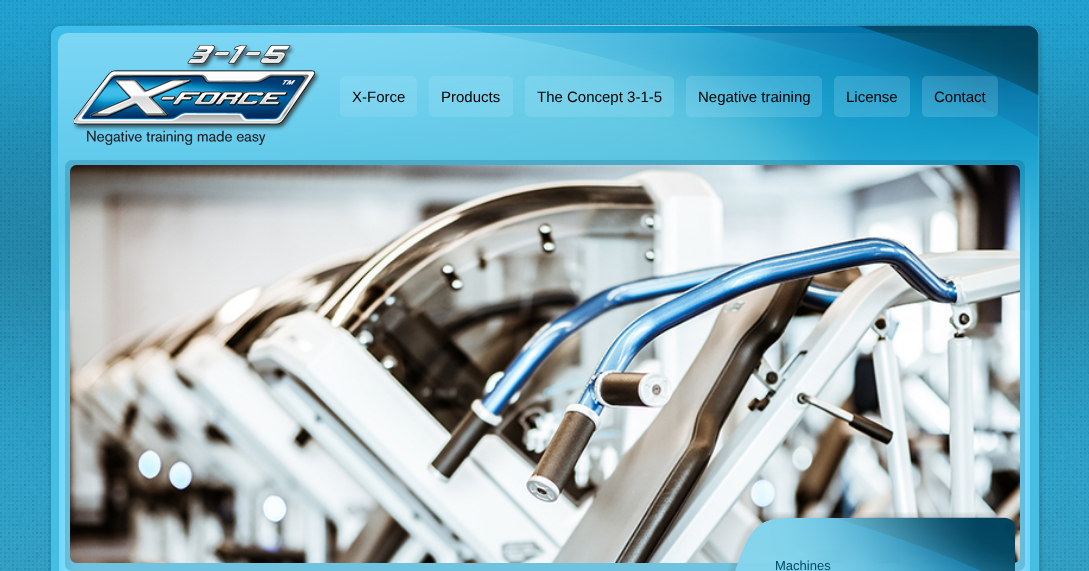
<!DOCTYPE html>
<meta charset="utf-8">
<style>body { margin: 0 } canvas { display: block }</style>
<canvas id="canvas" width="1089" height="571"></canvas>
<script type="module">
  const canvas = document.getElementById("canvas");
  const ctx = canvas.getContext("2d");
  ctx.miterLimit = 4;
  ctx.fontKerning = "normal";
  async function loadImage(src) {
    const img = new Image();
    img.src = src;
    await img.decode();
    return img;
  }

  ctx.fillStyle = "#ffffff";
  ctx.fillRect(0, 0, 1089, 571);
  ctx.drawImage(await loadImage("img1.png"), 0, 0, 1089, 571);
  ctx.drawImage(await loadImage("img2.png"), 0, 0, 1089, 571);
  ctx.drawImage(await loadImage("img3.png"), 48, 23, 996, 287);
  ctx.drawImage(await loadImage("img4.png"), 72, 44, 248, 101);
  ctx.fillStyle = "rgba(178, 235, 255, 0.2)";
  ctx.beginPath();
  ctx.roundRect(340, 76, 77, 41, 5);
  ctx.fill();
  ctx.font = "15px Liberation Sans";
  ctx.fillStyle = "#000000";
  ctx.fillText("X-Force", 352, 102);
  ctx.fillStyle = "rgba(178, 235, 255, 0.2)";
  ctx.beginPath();
  ctx.roundRect(429, 76, 84, 41, 5);
  ctx.fill();
  ctx.fillStyle = "#000000";
  ctx.fillText("Products", 441, 102);
  ctx.fillStyle = "rgba(178, 235, 255, 0.2)";
  ctx.beginPath();
  ctx.roundRect(525, 76, 149, 41, 5);
  ctx.fill();
  ctx.fillStyle = "#000000";
  ctx.fillText("The Concept 3-1-5", 537, 102);
  ctx.fillStyle = "rgba(178, 235, 255, 0.2)";
  ctx.beginPath();
  ctx.roundRect(686, 76, 136, 41, 5);
  ctx.fill();
  ctx.fillStyle = "#000000";
  ctx.fillText("Negative training", 698, 102);
  ctx.fillStyle = "rgba(178, 235, 255, 0.2)";
  ctx.beginPath();
  ctx.roundRect(834, 76, 76, 41, 5);
  ctx.fill();
  ctx.fillStyle = "#000000";
  ctx.fillText("License", 846, 102);
  ctx.fillStyle = "rgba(178, 235, 255, 0.2)";
  ctx.beginPath();
  ctx.roundRect(922, 76, 76, 41, 5);
  ctx.fill();
  ctx.fillStyle = "#000000";
  ctx.fillText("Contact", 934, 102);
  ctx.drawImage(await loadImage("img6.png"), 48, 310, 996, 261);
  ctx.fillStyle = "rgba(0, 67, 94, 0.2)";
  ctx.beginPath();
  ctx.roundRect(65, 160, 960, 411, 7);
  ctx.fill();
  ctx.drawImage(await loadImage("img5.png"), 70, 165, 950, 398);
  ctx.drawImage(await loadImage("img7.png"), 728, 512, 287, 59);
  ctx.font = "13px Liberation Sans";
  ctx.fillStyle = "#024966";
  ctx.fillText("Machines", 775, 570);
</script>
